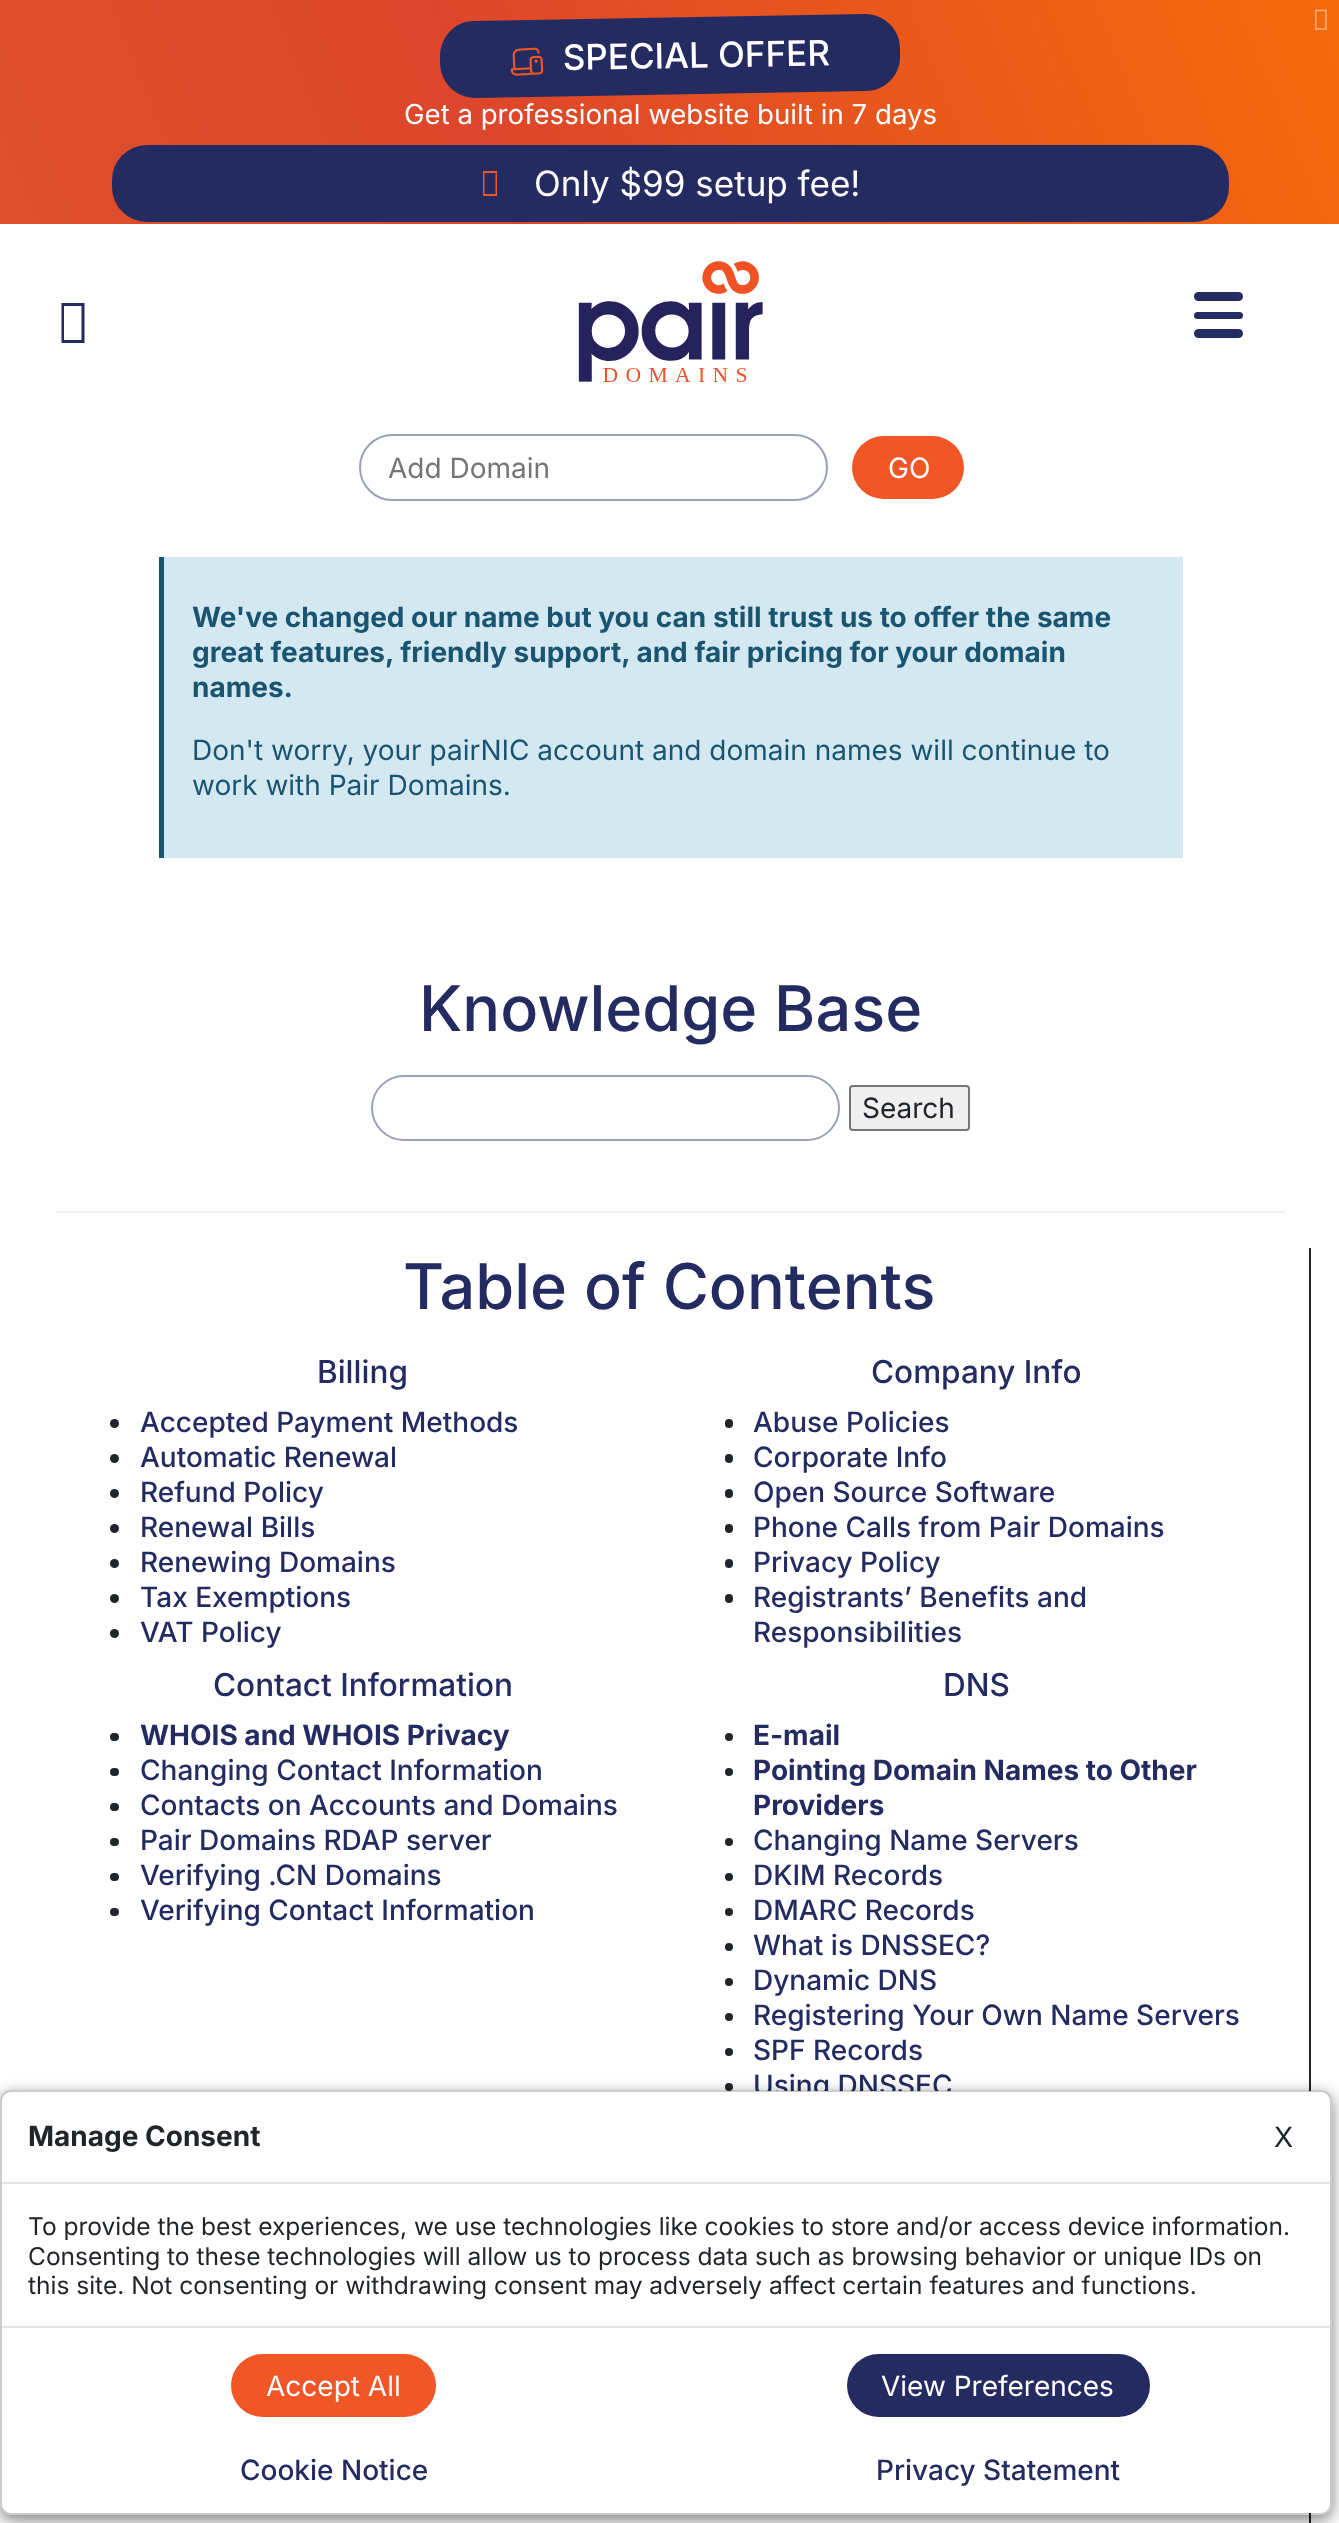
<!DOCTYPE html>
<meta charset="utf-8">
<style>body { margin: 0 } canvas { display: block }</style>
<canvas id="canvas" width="1339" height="2523"></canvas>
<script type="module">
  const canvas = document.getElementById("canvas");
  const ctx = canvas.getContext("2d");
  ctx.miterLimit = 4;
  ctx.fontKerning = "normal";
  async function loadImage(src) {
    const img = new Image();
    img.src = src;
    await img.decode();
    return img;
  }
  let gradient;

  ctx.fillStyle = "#ffffff";
  ctx.fillRect(0, 0, 1339, 2523);
  gradient = ctx.createLinearGradient(1017, -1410, -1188, -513);
  gradient.addColorStop(0, "#fd7501");
  gradient.addColorStop(0.45, "#dd462c");
  gradient.addColorStop(0.95, "#e05d28");
  ctx.fillStyle = gradient;
  ctx.fillRect(0, 0, 1339, 224);
  ctx.drawImage(await loadImage("img1.png"), 1315, 9, 12, 21);
  ctx.fillStyle = "#242b61";
  ctx.beginPath();
  ctx.moveTo(474, 21);
  ctx.lineTo(865, 14);
  ctx.bezierCurveTo(884, 14, 900, 29, 900, 48);
  ctx.lineTo(900, 55);
  ctx.bezierCurveTo(901, 75, 885, 91, 866, 91);
  ctx.lineTo(476, 98);
  ctx.bezierCurveTo(456, 98, 441, 83, 440, 64);
  ctx.lineTo(440, 57);
  ctx.bezierCurveTo(440, 37, 455, 21, 474, 21);
  ctx.closePath();
  ctx.fill();
  ctx.drawImage(await loadImage("img2.png"), 510, 47, 34, 29);
  ctx.font = "500 35px Inter";
  ctx.fillStyle = "#ffffff";
  ctx.save();
  ctx.translate(563, 70);
  ctx.rotate(-1 * Math.PI / 180);
  ctx.fillText("SPECIAL OFFER", 0, 0);
  ctx.restore();
  ctx.font = "27.6px Inter";
  ctx.fillText("Get a professional website built in 7 days", 404, 124);
  ctx.fillStyle = "#242b61";
  ctx.beginPath();
  ctx.roundRect(112, 145, 1117, 77, 35);
  ctx.fill();
  ctx.fillStyle = "#f15626";
  ctx.beginPath();
  ctx.moveTo(483, 196);
  ctx.lineTo(483, 171);
  ctx.lineTo(497, 171);
  ctx.lineTo(497, 196);
  ctx.closePath();
  ctx.moveTo(484.5, 194);
  ctx.lineTo(495.5, 194);
  ctx.lineTo(495.5, 173);
  ctx.lineTo(484.5, 173);
  ctx.closePath();
  ctx.fill();
  ctx.font = "35px Inter";
  ctx.fillStyle = "#ffffff";
  ctx.fillText("Only $99 setup fee!", 534, 196);
  ctx.fillStyle = "#242b61";
  ctx.beginPath();
  ctx.moveTo(61.5, 343);
  ctx.lineTo(61.5, 303);
  ctx.lineTo(84.5, 303);
  ctx.lineTo(84.5, 343);
  ctx.closePath();
  ctx.moveTo(64, 340);
  ctx.lineTo(81.5, 340);
  ctx.lineTo(81.5, 306);
  ctx.lineTo(64, 306);
  ctx.closePath();
  ctx.fill();
  ctx.drawImage(await loadImage("img3.png"), 578, 261, 185, 121);
  ctx.beginPath();
  ctx.roundRect(1194, 292, 49, 9, 4.5);
  ctx.fill();
  ctx.beginPath();
  ctx.roundRect(1194, 312, 49, 7, 3.5);
  ctx.fill();
  ctx.beginPath();
  ctx.roundRect(1194, 329, 49, 9, 4.5);
  ctx.fill();
  ctx.beginPath();
  ctx.roundRect(360, 435, 467, 65, 32.5);
  ctx.strokeStyle = "#9ca0b8";
  ctx.lineWidth = 2;
  ctx.stroke();
  ctx.font = "28px Inter";
  ctx.fillStyle = "#757575";
  ctx.fillText("Add Domain", 388, 478);
  ctx.fillStyle = "#f15626";
  ctx.beginPath();
  ctx.roundRect(852, 436, 112, 63, 31.5);
  ctx.fill();
  ctx.fillStyle = "#ffffff";
  ctx.fillText("GO", 888, 478);
  ctx.fillStyle = "#d4e8f1";
  ctx.fillRect(164, 557, 1019, 301);
  ctx.fillStyle = "#195570";
  ctx.fillRect(159, 557, 5, 301);
  ctx.font = "bold 28px Inter";
  ctx.fillText("We've changed our name but you can still trust us to offer the same", 192, 627);
  ctx.fillText("great features, friendly support, and fair pricing for your domain", 192, 662);
  ctx.fillText("names.", 192, 697);
  ctx.font = "28px Inter";
  ctx.fillText("Don't worry, your pairNIC account and domain names will continue to", 192, 760);
  ctx.fillText("work with Pair Domains.", 192, 795);
  ctx.font = "500 63px Inter";
  ctx.fillStyle = "#242b61";
  ctx.fillText("Knowledge Base", 419, 1031);
  ctx.beginPath();
  ctx.roundRect(372, 1076, 467, 64, 32);
  ctx.stroke();
  ctx.fillStyle = "#efefef";
  ctx.beginPath();
  ctx.roundRect(850, 1086, 119, 44, 3);
  ctx.fill();
  ctx.strokeStyle = "#767676";
  ctx.stroke();
  ctx.font = "28px Inter";
  ctx.fillStyle = "#212529";
  ctx.fillText("Search", 862, 1118);
  ctx.fillStyle = "#eeeeee";
  ctx.fillRect(56, 1211, 1229, 2);
  ctx.fillStyle = "#212529";
  ctx.fillRect(1309, 1248, 2, 1275);
  ctx.font = "500 63px Inter";
  ctx.fillStyle = "#242b61";
  ctx.fillText("Table of Contents", 403, 1309);
  ctx.font = "500 31.5px Inter";
  ctx.fillText("Billing", 317, 1383);
  ctx.fillStyle = "#212529";
  ctx.beginPath();
  ctx.arc(114.5, 1423.5, 4.5, 0, Math.PI * 2);
  ctx.fill();
  ctx.font = "500 28px Inter";
  ctx.fillStyle = "#242b61";
  ctx.fillText("Accepted Payment Methods", 140, 1432);
  ctx.fillStyle = "#212529";
  ctx.beginPath();
  ctx.arc(114.5, 1458.5, 4.5, 0, Math.PI * 2);
  ctx.fill();
  ctx.fillStyle = "#242b61";
  ctx.fillText("Automatic Renewal", 140, 1467);
  ctx.fillStyle = "#212529";
  ctx.beginPath();
  ctx.arc(114.5, 1493.5, 4.5, 0, Math.PI * 2);
  ctx.fill();
  ctx.fillStyle = "#242b61";
  ctx.fillText("Refund Policy", 140, 1502);
  ctx.fillStyle = "#212529";
  ctx.beginPath();
  ctx.arc(114.5, 1528.5, 4.5, 0, Math.PI * 2);
  ctx.fill();
  ctx.fillStyle = "#242b61";
  ctx.fillText("Renewal Bills", 140, 1537);
  ctx.fillStyle = "#212529";
  ctx.beginPath();
  ctx.arc(114.5, 1563.5, 4.5, 0, Math.PI * 2);
  ctx.fill();
  ctx.fillStyle = "#242b61";
  ctx.fillText("Renewing Domains", 140, 1572);
  ctx.fillStyle = "#212529";
  ctx.beginPath();
  ctx.arc(114.5, 1598.5, 4.5, 0, Math.PI * 2);
  ctx.fill();
  ctx.fillStyle = "#242b61";
  ctx.fillText("Tax Exemptions", 140, 1607);
  ctx.fillStyle = "#212529";
  ctx.beginPath();
  ctx.arc(114.5, 1633.5, 4.5, 0, Math.PI * 2);
  ctx.fill();
  ctx.fillStyle = "#242b61";
  ctx.fillText("VAT Policy", 140, 1642);
  ctx.font = "500 31.5px Inter";
  ctx.fillText("Company Info", 871, 1383);
  ctx.fillStyle = "#212529";
  ctx.beginPath();
  ctx.roundRect(725, 1419, 8, 9, 4);
  ctx.fill();
  ctx.font = "500 28px Inter";
  ctx.fillStyle = "#242b61";
  ctx.fillText("Abuse Policies", 753, 1432);
  ctx.fillStyle = "#212529";
  ctx.beginPath();
  ctx.roundRect(725, 1454, 8, 9, 4);
  ctx.fill();
  ctx.fillStyle = "#242b61";
  ctx.fillText("Corporate Info", 753, 1467);
  ctx.fillStyle = "#212529";
  ctx.beginPath();
  ctx.roundRect(725, 1489, 8, 9, 4);
  ctx.fill();
  ctx.fillStyle = "#242b61";
  ctx.fillText("Open Source Software", 753, 1502);
  ctx.fillStyle = "#212529";
  ctx.beginPath();
  ctx.roundRect(725, 1524, 8, 9, 4);
  ctx.fill();
  ctx.fillStyle = "#242b61";
  ctx.fillText("Phone Calls from Pair Domains", 753, 1537);
  ctx.fillStyle = "#212529";
  ctx.beginPath();
  ctx.roundRect(725, 1559, 8, 9, 4);
  ctx.fill();
  ctx.fillStyle = "#242b61";
  ctx.fillText("Privacy Policy", 753, 1572);
  ctx.fillStyle = "#212529";
  ctx.beginPath();
  ctx.roundRect(725, 1594, 8, 9, 4);
  ctx.fill();
  ctx.fillStyle = "#242b61";
  ctx.fillText("Registrants’ Benefits and", 753, 1607);
  ctx.fillText("Responsibilities", 753, 1642);
  ctx.font = "500 31.5px Inter";
  ctx.fillText("Contact Information", 213, 1696);
  ctx.fillStyle = "#212529";
  ctx.beginPath();
  ctx.roundRect(110, 1733, 9, 8, 4);
  ctx.fill();
  ctx.font = "bold 28px Inter";
  ctx.fillStyle = "#242b61";
  ctx.fillText("WHOIS and WHOIS Privacy", 140, 1745);
  ctx.fillStyle = "#212529";
  ctx.beginPath();
  ctx.roundRect(110, 1768, 9, 8, 4);
  ctx.fill();
  ctx.font = "500 28px Inter";
  ctx.fillStyle = "#242b61";
  ctx.fillText("Changing Contact Information", 140, 1780);
  ctx.fillStyle = "#212529";
  ctx.beginPath();
  ctx.roundRect(110, 1803, 9, 8, 4);
  ctx.fill();
  ctx.fillStyle = "#242b61";
  ctx.fillText("Contacts on Accounts and Domains", 140, 1815);
  ctx.fillStyle = "#212529";
  ctx.beginPath();
  ctx.roundRect(110, 1838, 9, 8, 4);
  ctx.fill();
  ctx.fillStyle = "#242b61";
  ctx.fillText("Pair Domains RDAP server", 140, 1850);
  ctx.fillStyle = "#212529";
  ctx.beginPath();
  ctx.roundRect(110, 1873, 9, 8, 4);
  ctx.fill();
  ctx.fillStyle = "#242b61";
  ctx.fillText("Verifying .CN Domains", 140, 1885);
  ctx.fillStyle = "#212529";
  ctx.beginPath();
  ctx.roundRect(110, 1908, 9, 8, 4);
  ctx.fill();
  ctx.fillStyle = "#242b61";
  ctx.fillText("Verifying Contact Information", 140, 1920);
  ctx.font = "500 31.5px Inter";
  ctx.fillText("DNS", 943, 1696);
  ctx.fillStyle = "#212529";
  ctx.beginPath();
  ctx.arc(729, 1737, 4, 0, Math.PI * 2);
  ctx.fill();
  ctx.font = "bold 28px Inter";
  ctx.fillStyle = "#242b61";
  ctx.fillText("E-mail", 753, 1745);
  ctx.fillStyle = "#212529";
  ctx.beginPath();
  ctx.arc(729, 1772, 4, 0, Math.PI * 2);
  ctx.fill();
  ctx.fillStyle = "#242b61";
  ctx.fillText("Pointing Domain Names to Other", 753, 1780);
  ctx.fillText("Providers", 753, 1815);
  ctx.fillStyle = "#212529";
  ctx.beginPath();
  ctx.arc(729, 1842, 4, 0, Math.PI * 2);
  ctx.fill();
  ctx.font = "500 28px Inter";
  ctx.fillStyle = "#242b61";
  ctx.fillText("Changing Name Servers", 753, 1850);
  ctx.fillStyle = "#212529";
  ctx.beginPath();
  ctx.arc(729, 1877, 4, 0, Math.PI * 2);
  ctx.fill();
  ctx.fillStyle = "#242b61";
  ctx.fillText("DKIM Records", 753, 1885);
  ctx.fillStyle = "#212529";
  ctx.beginPath();
  ctx.arc(729, 1912, 4, 0, Math.PI * 2);
  ctx.fill();
  ctx.fillStyle = "#242b61";
  ctx.fillText("DMARC Records", 753, 1920);
  ctx.fillStyle = "#212529";
  ctx.beginPath();
  ctx.arc(729, 1947, 4, 0, Math.PI * 2);
  ctx.fill();
  ctx.fillStyle = "#242b61";
  ctx.fillText("What is DNSSEC?", 753, 1955);
  ctx.fillStyle = "#212529";
  ctx.beginPath();
  ctx.arc(729, 1982, 4, 0, Math.PI * 2);
  ctx.fill();
  ctx.fillStyle = "#242b61";
  ctx.fillText("Dynamic DNS", 753, 1990);
  ctx.fillStyle = "#212529";
  ctx.beginPath();
  ctx.arc(729, 2017, 4, 0, Math.PI * 2);
  ctx.fill();
  ctx.fillStyle = "#242b61";
  ctx.fillText("Registering Your Own Name Servers", 753, 2025);
  ctx.fillStyle = "#212529";
  ctx.beginPath();
  ctx.arc(729, 2052, 4, 0, Math.PI * 2);
  ctx.fill();
  ctx.fillStyle = "#242b61";
  ctx.fillText("SPF Records", 753, 2060);
  ctx.fillStyle = "#212529";
  ctx.beginPath();
  ctx.arc(729, 2087, 4, 0, Math.PI * 2);
  ctx.fill();
  ctx.fillStyle = "#242b61";
  ctx.fillText("Using DNSSEC", 753, 2095);
  ctx.save();
  ctx.beginPath();
  ctx.moveTo(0, 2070);
  ctx.lineTo(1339, 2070);
  ctx.lineTo(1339, 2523);
  ctx.lineTo(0, 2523);
  ctx.closePath();
  ctx.moveTo(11, 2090);
  ctx.lineTo(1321, 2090);
  ctx.bezierCurveTo(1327, 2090, 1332, 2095, 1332, 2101);
  ctx.lineTo(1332, 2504);
  ctx.bezierCurveTo(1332, 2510, 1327, 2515, 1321, 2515);
  ctx.lineTo(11, 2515);
  ctx.bezierCurveTo(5, 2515, 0, 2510, 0, 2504);
  ctx.lineTo(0, 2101);
  ctx.bezierCurveTo(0, 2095, 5, 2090, 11, 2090);
  ctx.closePath();
  ctx.clip("evenodd");
  ctx.fillStyle = "rgba(0, 0, 0, 0.5)";
  ctx.filter = "blur(8px)";
  ctx.beginPath();
  ctx.roundRect(0, 2095, 1332, 425, 11);
  ctx.fill();
  ctx.filter = "none";
  ctx.restore();
  ctx.fillStyle = "#ffffff";
  ctx.beginPath();
  ctx.roundRect(2, 2091, 1328, 422, 9);
  ctx.fill();
  ctx.beginPath();
  ctx.roundRect(1, 2091, 1330, 423, 10);
  ctx.strokeStyle = "rgba(0, 0, 0, 0.2)";
  ctx.stroke();
  ctx.fillStyle = "#e5e5e5";
  ctx.fillRect(2, 2182, 1328, 2);
  ctx.font = "bold 28px Inter";
  ctx.fillStyle = "#212529";
  ctx.fillText("Manage Consent", 28, 2146);
  ctx.font = "28px Inter";
  ctx.fillText("X", 1274, 2147);
  ctx.font = "24.5px Inter";
  ctx.fillText("To provide the best experiences, we use technologies like cookies to store and/or access device information.", 28, 2235);
  ctx.fillText("Consenting to these technologies will allow us to process data such as browsing behavior or unique IDs on", 28, 2265);
  ctx.fillText("this site. Not consenting or withdrawing consent may adversely affect certain features and functions.", 28, 2294);
  ctx.fillStyle = "#e5e5e5";
  ctx.fillRect(2, 2326, 1328, 2);
  ctx.fillStyle = "#f15626";
  ctx.beginPath();
  ctx.roundRect(231, 2354, 205, 63, 31.5);
  ctx.fill();
  ctx.font = "28px Inter";
  ctx.fillStyle = "#ffffff";
  ctx.fillText("Accept All", 266, 2396);
  ctx.fillStyle = "#242b61";
  ctx.beginPath();
  ctx.roundRect(847, 2354, 303, 63, 31.5);
  ctx.fill();
  ctx.fillStyle = "#ffffff";
  ctx.fillText("View Preferences", 881, 2396);
  ctx.font = "500 28px Inter";
  ctx.fillStyle = "#242b61";
  ctx.fillText("Cookie Notice", 240, 2480);
  ctx.fillText("Privacy Statement", 876, 2480);
</script>
